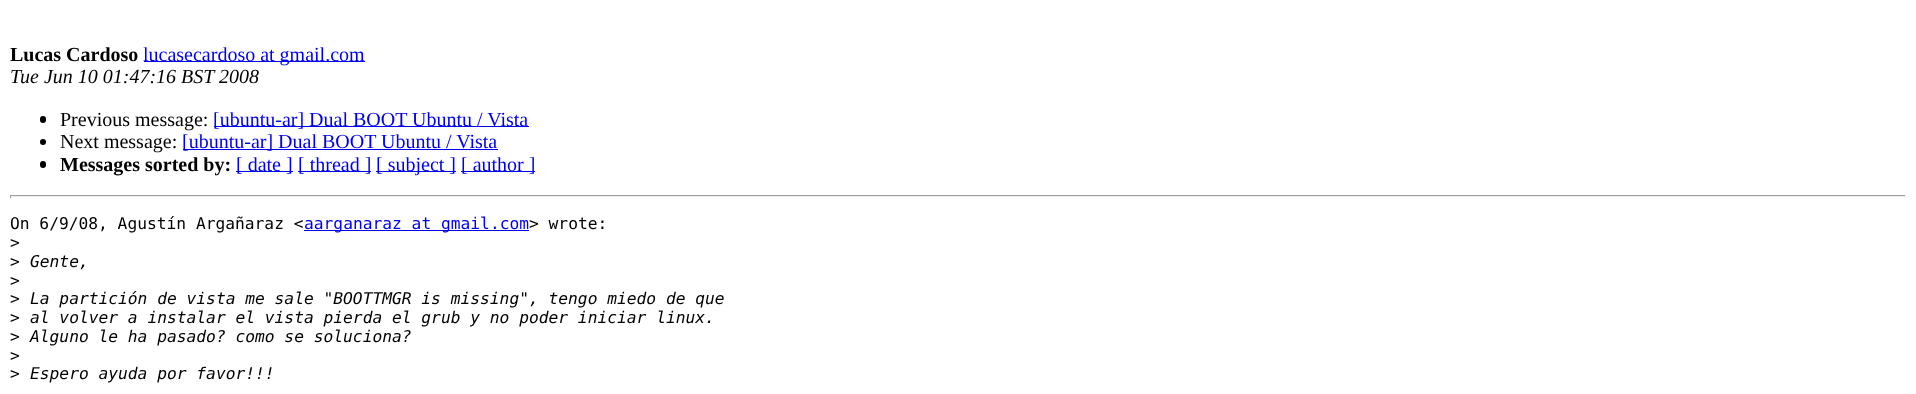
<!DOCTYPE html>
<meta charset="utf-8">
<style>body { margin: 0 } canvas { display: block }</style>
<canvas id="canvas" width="1916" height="394"></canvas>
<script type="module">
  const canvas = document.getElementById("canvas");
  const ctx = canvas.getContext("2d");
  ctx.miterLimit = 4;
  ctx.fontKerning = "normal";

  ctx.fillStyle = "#ffffff";
  ctx.fillRect(0, 0, 1916, 394);
  ctx.font = "bold 20px Liberation Serif";
  ctx.fillStyle = "#000000";
  ctx.fillText("Lucas Cardoso", 10, 61);
  ctx.fillStyle = "#0000ee";
  ctx.fillRect(144, 61, 221, 1);
  ctx.font = "20px Liberation Serif";
  ctx.fillText("lucasecardoso at gmail.com", 143, 61);
  ctx.font = "italic 20px Liberation Serif";
  ctx.fillStyle = "#000000";
  ctx.fillText("Tue Jun 10 01:47:16 BST 2008", 10, 83);
  ctx.beginPath();
  ctx.roundRect(40, 116, 6, 7, 3);
  ctx.fill();
  ctx.font = "20px Liberation Serif";
  ctx.fillText("Previous message:", 60, 126);
  ctx.fillStyle = "#0000ee";
  ctx.fillRect(214, 126, 315, 1);
  ctx.fillText("[ubuntu-ar] Dual BOOT Ubuntu / Vista", 213, 126);
  ctx.fillStyle = "#000000";
  ctx.beginPath();
  ctx.arc(43, 142, 3, 0, Math.PI * 2);
  ctx.fill();
  ctx.fillText("Next message:", 60, 148);
  ctx.fillStyle = "#0000ee";
  ctx.fillRect(183, 149, 315, 1);
  ctx.fillText("[ubuntu-ar] Dual BOOT Ubuntu / Vista", 182, 148);
  ctx.fillStyle = "#000000";
  ctx.beginPath();
  ctx.roundRect(40, 161, 6, 7, 3);
  ctx.fill();
  ctx.font = "bold 20px Liberation Serif";
  ctx.fillText("Messages sorted by:", 60, 171);
  ctx.fillStyle = "#0000ee";
  ctx.fillRect(236, 171, 57, 1);
  ctx.font = "20px Liberation Serif";
  ctx.fillText("[ date ]", 236, 171);
  ctx.fillRect(298, 171, 73, 1);
  ctx.fillText("[ thread ]", 298, 171);
  ctx.fillRect(376, 171, 80, 1);
  ctx.fillText("[ subject ]", 376, 171);
  ctx.fillRect(461, 171, 74, 1);
  ctx.fillText("[ author ]", 461, 171);
  ctx.fillStyle = "#9f9f9f";
  ctx.fillRect(10, 195, 1896, 1);
  ctx.fillStyle = "#eeeeee";
  ctx.fillRect(1905, 195, 1, 3);
  ctx.fillRect(10, 196, 1896, 1);
  ctx.fillStyle = "#9f9f9f";
  ctx.fillRect(10, 195, 1, 3);
  ctx.font = "16.25px DejaVu Sans Mono";
  ctx.fillStyle = "#000000";
  ctx.fillText("On 6/9/08, Agustín Argañaraz <", 10, 229);
  ctx.fillStyle = "#0000ee";
  ctx.fillRect(304, 230, 225, 1);
  ctx.fillText("aarganaraz at gmail.com", 304, 229);
  ctx.fillStyle = "#000000";
  ctx.fillText("> wrote:", 529, 229);
  ctx.fillText(">", 10, 248);
  ctx.fillText(">", 10, 267);
  ctx.font = "italic 16.25px DejaVu Sans Mono";
  ctx.fillText("Gente,", 30, 267);
  ctx.font = "16.25px DejaVu Sans Mono";
  ctx.fillText(">", 10, 286);
  ctx.fillText(">", 10, 304);
  ctx.font = "italic 16.25px DejaVu Sans Mono";
  ctx.fillText("La partición de vista me sale \"BOOTTMGR is missing\", tengo miedo de que", 30, 304);
  ctx.font = "16.25px DejaVu Sans Mono";
  ctx.fillText(">", 10, 323);
  ctx.font = "italic 16.25px DejaVu Sans Mono";
  ctx.fillText("al volver a instalar el vista pierda el grub y no poder iniciar linux.", 30, 323);
  ctx.font = "16.25px DejaVu Sans Mono";
  ctx.fillText(">", 10, 342);
  ctx.font = "italic 16.25px DejaVu Sans Mono";
  ctx.fillText("Alguno le ha pasado? como se soluciona?", 30, 342);
  ctx.font = "16.25px DejaVu Sans Mono";
  ctx.fillText(">", 10, 361);
  ctx.fillText(">", 10, 379);
  ctx.font = "italic 16.25px DejaVu Sans Mono";
  ctx.fillText("Espero ayuda por favor!!!", 30, 379);
</script>
